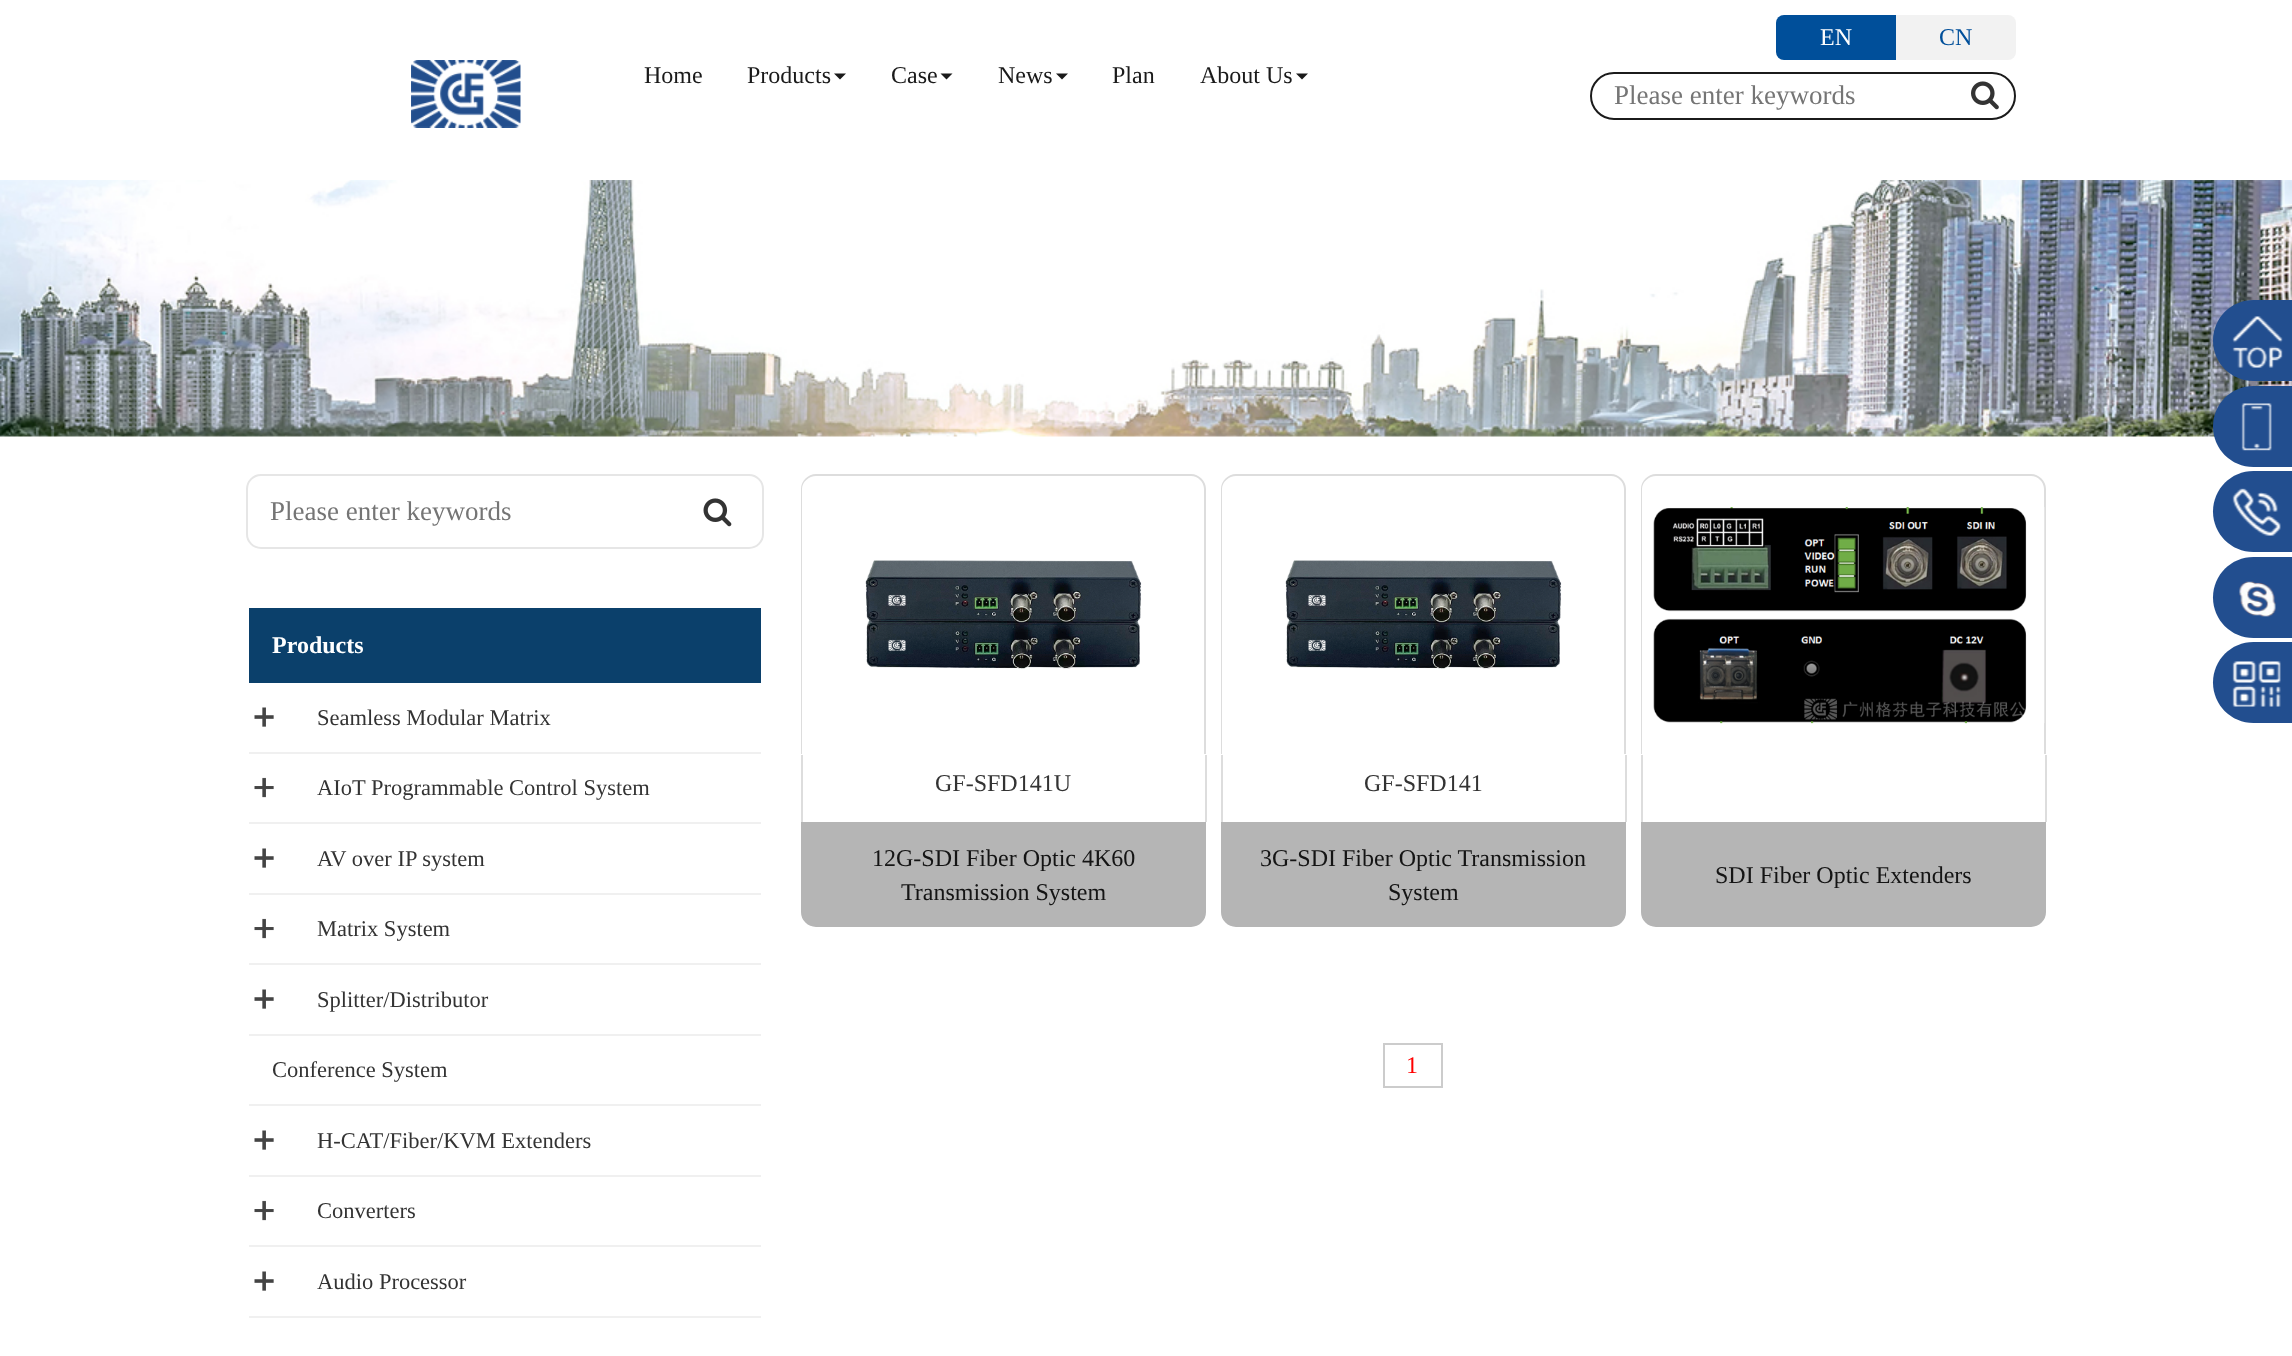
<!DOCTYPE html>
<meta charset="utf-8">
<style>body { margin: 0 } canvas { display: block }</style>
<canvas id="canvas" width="2292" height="1356"></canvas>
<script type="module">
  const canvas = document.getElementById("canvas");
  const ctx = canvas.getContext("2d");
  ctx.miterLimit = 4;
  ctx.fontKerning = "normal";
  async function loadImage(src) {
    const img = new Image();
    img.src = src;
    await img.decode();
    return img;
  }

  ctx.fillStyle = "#ffffff";
  ctx.fillRect(0, 0, 2292, 1356);
  ctx.drawImage(await loadImage("img1.png"), 411, 60, 110, 68);
  ctx.font = "24px Liberation Serif";
  ctx.fillStyle = "#1a1a1a";
  ctx.fillText("Home", 644, 83);
  ctx.fillText("Products", 747, 83);
  ctx.beginPath();
  ctx.moveTo(834, 73.5);
  ctx.lineTo(846, 73.5);
  ctx.lineTo(840, 79.5);
  ctx.closePath();
  ctx.fill();
  ctx.fillText("Case", 891, 83);
  ctx.beginPath();
  ctx.moveTo(940.5, 73.5);
  ctx.lineTo(952.5, 73.5);
  ctx.lineTo(946.5, 79.5);
  ctx.closePath();
  ctx.fill();
  ctx.fillText("News", 998, 83);
  ctx.beginPath();
  ctx.moveTo(1056, 73.5);
  ctx.lineTo(1068, 73.5);
  ctx.lineTo(1062, 79.5);
  ctx.closePath();
  ctx.fill();
  ctx.fillText("Plan", 1112, 83);
  ctx.fillText("About Us", 1200, 83);
  ctx.beginPath();
  ctx.moveTo(1296, 73.5);
  ctx.lineTo(1308, 73.5);
  ctx.lineTo(1302, 79.5);
  ctx.closePath();
  ctx.fill();
  ctx.fillStyle = "#004f9a";
  ctx.beginPath();
  ctx.roundRect(1776, 15, 120, 45, [8, 0, 0, 8]);
  ctx.fill();
  ctx.fillStyle = "#ffffff";
  ctx.fillText("EN", 1820, 45);
  ctx.fillStyle = "#f2f2f2";
  ctx.beginPath();
  ctx.roundRect(1896, 15, 120, 45, [0, 8, 8, 0]);
  ctx.fill();
  ctx.fillStyle = "#004f9a";
  ctx.fillText("CN", 1939, 45);
  ctx.beginPath();
  ctx.roundRect(1591, 73, 424, 46, 23);
  ctx.strokeStyle = "#1b1b1b";
  ctx.lineWidth = 2;
  ctx.stroke();
  ctx.font = "27px Liberation Serif";
  ctx.fillStyle = "#757575";
  ctx.fillText("Please enter keywords", 1614, 104);
  ctx.drawImage(await loadImage("img2.png"), 1971, 81, 28, 29);
  ctx.drawImage(await loadImage("img3.png"), 0, 180, 2292, 257);
  ctx.beginPath();
  ctx.roundRect(247, 475, 516, 73, 14);
  ctx.strokeStyle = "#e6e6e6";
  ctx.stroke();
  ctx.fillText("Please enter keywords", 270, 520);
  ctx.drawImage(await loadImage("img4.png"), 703, 498, 29, 29);
  ctx.fillStyle = "#0b406b";
  ctx.fillRect(249, 608, 512, 75);
  ctx.font = "bold 24px Liberation Serif";
  ctx.fillStyle = "#ffffff";
  ctx.fillText("Products", 272, 653);
  ctx.fillStyle = "#f0f0f0";
  ctx.fillRect(249, 752, 512, 2);
  ctx.drawImage(await loadImage("img5.png"), 254, 707, 20, 20);
  ctx.font = "22.5px Liberation Serif";
  ctx.fillStyle = "#333333";
  ctx.fillText("Seamless Modular Matrix", 317, 725);
  ctx.fillStyle = "#f0f0f0";
  ctx.fillRect(249, 822, 512, 2);
  ctx.drawImage(await loadImage("img6.png"), 254, 777, 20, 21);
  ctx.fillStyle = "#333333";
  ctx.fillText("AIoT Programmable Control System", 317, 795);
  ctx.fillStyle = "#f0f0f0";
  ctx.fillRect(249, 893, 512, 2);
  ctx.drawImage(await loadImage("img5.png"), 254, 848, 20, 20);
  ctx.fillStyle = "#333333";
  ctx.fillText("AV over IP system", 317, 866);
  ctx.fillStyle = "#f0f0f0";
  ctx.fillRect(249, 963, 512, 2);
  ctx.drawImage(await loadImage("img6.png"), 254, 918, 20, 21);
  ctx.fillStyle = "#333333";
  ctx.fillText("Matrix System", 317, 936);
  ctx.fillStyle = "#f0f0f0";
  ctx.fillRect(249, 1034, 512, 2);
  ctx.drawImage(await loadImage("img5.png"), 254, 989, 20, 20);
  ctx.fillStyle = "#333333";
  ctx.fillText("Splitter/Distributor", 317, 1007);
  ctx.fillStyle = "#f0f0f0";
  ctx.fillRect(249, 1104, 512, 2);
  ctx.fillStyle = "#333333";
  ctx.fillText("Conference System", 272, 1077);
  ctx.fillStyle = "#f0f0f0";
  ctx.fillRect(249, 1175, 512, 2);
  ctx.drawImage(await loadImage("img5.png"), 254, 1130, 20, 20);
  ctx.fillStyle = "#333333";
  ctx.fillText("H-CAT/Fiber/KVM Extenders", 317, 1148);
  ctx.fillStyle = "#f0f0f0";
  ctx.fillRect(249, 1245, 512, 2);
  ctx.drawImage(await loadImage("img6.png"), 254, 1200, 20, 21);
  ctx.fillStyle = "#333333";
  ctx.fillText("Converters", 317, 1218);
  ctx.fillStyle = "#f0f0f0";
  ctx.fillRect(249, 1316, 512, 2);
  ctx.drawImage(await loadImage("img5.png"), 254, 1271, 20, 20);
  ctx.fillStyle = "#333333";
  ctx.fillText("Audio Processor", 317, 1289);
  ctx.fillStyle = "#dddddd";
  ctx.beginPath();
  ctx.moveTo(816, 474);
  ctx.lineTo(1191, 474);
  ctx.bezierCurveTo(1199, 474, 1206, 481, 1206, 489);
  ctx.lineTo(1206, 754);
  ctx.lineTo(801, 754);
  ctx.lineTo(801, 489);
  ctx.bezierCurveTo(801, 481, 808, 474, 816, 474);
  ctx.closePath();
  ctx.moveTo(816, 476);
  ctx.lineTo(1191, 476);
  ctx.bezierCurveTo(1198, 476, 1204, 482, 1204, 489);
  ctx.lineTo(1204, 754);
  ctx.lineTo(802, 754);
  ctx.lineTo(802, 489);
  ctx.bezierCurveTo(802, 482, 809, 476, 816, 476);
  ctx.closePath();
  ctx.fill("evenodd");
  ctx.drawImage(await loadImage("img7.png"), 865, 560, 277, 109);
  ctx.fillRect(1205, 755, 2, 67);
  ctx.fillRect(801, 755, 2, 67);
  ctx.font = "24px Liberation Serif";
  ctx.fillStyle = "#333333";
  ctx.fillText("GF-SFD141U", 935, 791);
  ctx.fillStyle = "#b5b5b5";
  ctx.beginPath();
  ctx.roundRect(802, 823, 403, 103, [0, 0, 14, 14]);
  ctx.fill();
  ctx.strokeStyle = "#b5b5b5";
  ctx.stroke();
  ctx.fillStyle = "#141414";
  ctx.fillText("12G-SDI Fiber Optic 4K60", 872, 866);
  ctx.fillText("Transmission System", 901, 900);
  ctx.fillStyle = "#dddddd";
  ctx.beginPath();
  ctx.moveTo(1236, 474);
  ctx.lineTo(1611, 474);
  ctx.bezierCurveTo(1619, 474, 1626, 481, 1626, 489);
  ctx.lineTo(1626, 754);
  ctx.lineTo(1221, 754);
  ctx.lineTo(1221, 489);
  ctx.bezierCurveTo(1221, 481, 1228, 474, 1236, 474);
  ctx.closePath();
  ctx.moveTo(1236, 476);
  ctx.lineTo(1611, 476);
  ctx.bezierCurveTo(1618, 476, 1624, 482, 1624, 489);
  ctx.lineTo(1624, 754);
  ctx.lineTo(1222, 754);
  ctx.lineTo(1222, 489);
  ctx.bezierCurveTo(1222, 482, 1229, 476, 1236, 476);
  ctx.closePath();
  ctx.fill("evenodd");
  ctx.drawImage(await loadImage("img7.png"), 1285, 560, 277, 109);
  ctx.fillRect(1625, 755, 2, 67);
  ctx.fillRect(1221, 755, 2, 67);
  ctx.fillStyle = "#333333";
  ctx.fillText("GF-SFD141", 1364, 791);
  ctx.fillStyle = "#b5b5b5";
  ctx.beginPath();
  ctx.roundRect(1222, 823, 403, 103, [0, 0, 14, 14]);
  ctx.fill();
  ctx.stroke();
  ctx.fillStyle = "#141414";
  ctx.fillText("3G-SDI Fiber Optic Transmission", 1260, 866);
  ctx.fillText("System", 1388, 900);
  ctx.fillStyle = "#dddddd";
  ctx.beginPath();
  ctx.moveTo(1656, 474);
  ctx.lineTo(2031, 474);
  ctx.bezierCurveTo(2039, 474, 2046, 481, 2046, 489);
  ctx.lineTo(2046, 754);
  ctx.lineTo(1641, 754);
  ctx.lineTo(1641, 489);
  ctx.bezierCurveTo(1641, 481, 1648, 474, 1656, 474);
  ctx.closePath();
  ctx.moveTo(1656, 476);
  ctx.lineTo(2031, 476);
  ctx.bezierCurveTo(2038, 476, 2044, 482, 2044, 489);
  ctx.lineTo(2044, 754);
  ctx.lineTo(1642, 754);
  ctx.lineTo(1642, 489);
  ctx.bezierCurveTo(1642, 482, 1649, 476, 1656, 476);
  ctx.closePath();
  ctx.fill("evenodd");
  ctx.drawImage(await loadImage("img8.png"), 1653, 507, 392, 217);
  ctx.fillRect(2045, 755, 2, 67);
  ctx.fillRect(1641, 755, 2, 67);
  ctx.fillStyle = "#b5b5b5";
  ctx.beginPath();
  ctx.roundRect(1642, 823, 403, 103, [0, 0, 14, 14]);
  ctx.fill();
  ctx.stroke();
  ctx.fillStyle = "#141414";
  ctx.fillText("SDI Fiber Optic Extenders", 1715, 883);
  ctx.strokeStyle = "#cccccc";
  ctx.strokeRect(1384, 1044, 58, 43);
  ctx.fillStyle = "#ff0000";
  ctx.fillText("1", 1406, 1073);
  ctx.fillStyle = "#224e8f";
  ctx.beginPath();
  ctx.moveTo(2253.5, 300);
  ctx.lineTo(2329, 300);
  ctx.bezierCurveTo(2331, 300, 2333, 302, 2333, 304);
  ctx.lineTo(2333, 377);
  ctx.bezierCurveTo(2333, 379, 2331, 381, 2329, 381);
  ctx.lineTo(2253.5, 381);
  ctx.bezierCurveTo(2231, 381, 2213, 363, 2213, 340.5);
  ctx.bezierCurveTo(2213, 318, 2231, 300, 2253.5, 300);
  ctx.closePath();
  ctx.fill();
  ctx.drawImage(await loadImage("img9.png"), 2232, 316, 51, 52);
  ctx.beginPath();
  ctx.moveTo(2253.5, 386);
  ctx.lineTo(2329, 386);
  ctx.bezierCurveTo(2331, 386, 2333, 388, 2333, 390);
  ctx.lineTo(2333, 463);
  ctx.bezierCurveTo(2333, 465, 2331, 467, 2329, 467);
  ctx.lineTo(2253.5, 467);
  ctx.bezierCurveTo(2231, 467, 2213, 449, 2213, 426.5);
  ctx.bezierCurveTo(2213, 404, 2231, 386, 2253.5, 386);
  ctx.closePath();
  ctx.fill();
  ctx.drawImage(await loadImage("img10.png"), 2241, 403, 31, 48);
  ctx.beginPath();
  ctx.moveTo(2253.5, 471);
  ctx.lineTo(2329, 471);
  ctx.bezierCurveTo(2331, 471, 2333, 473, 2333, 475);
  ctx.lineTo(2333, 548);
  ctx.bezierCurveTo(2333, 550, 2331, 552, 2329, 552);
  ctx.lineTo(2253.5, 552);
  ctx.bezierCurveTo(2231, 552, 2213, 534, 2213, 511.5);
  ctx.bezierCurveTo(2213, 489, 2231, 471, 2253.5, 471);
  ctx.closePath();
  ctx.fill();
  ctx.drawImage(await loadImage("img11.png"), 2232, 488, 49, 48);
  ctx.beginPath();
  ctx.moveTo(2253.5, 557);
  ctx.lineTo(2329, 557);
  ctx.bezierCurveTo(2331, 557, 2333, 559, 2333, 561);
  ctx.lineTo(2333, 634);
  ctx.bezierCurveTo(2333, 636, 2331, 638, 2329, 638);
  ctx.lineTo(2253.5, 638);
  ctx.bezierCurveTo(2231, 638, 2213, 620, 2213, 597.5);
  ctx.bezierCurveTo(2213, 575, 2231, 557, 2253.5, 557);
  ctx.closePath();
  ctx.fill();
  ctx.drawImage(await loadImage("img12.png"), 2239, 581, 37, 36);
  ctx.beginPath();
  ctx.moveTo(2253.5, 642);
  ctx.lineTo(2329, 642);
  ctx.bezierCurveTo(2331, 642, 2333, 644, 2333, 646);
  ctx.lineTo(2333, 719);
  ctx.bezierCurveTo(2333, 721, 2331, 723, 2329, 723);
  ctx.lineTo(2253.5, 723);
  ctx.bezierCurveTo(2231, 723, 2213, 705, 2213, 682.5);
  ctx.bezierCurveTo(2213, 660, 2231, 642, 2253.5, 642);
  ctx.closePath();
  ctx.fill();
  ctx.drawImage(await loadImage("img13.png"), 2232, 661, 49, 46);
</script>
